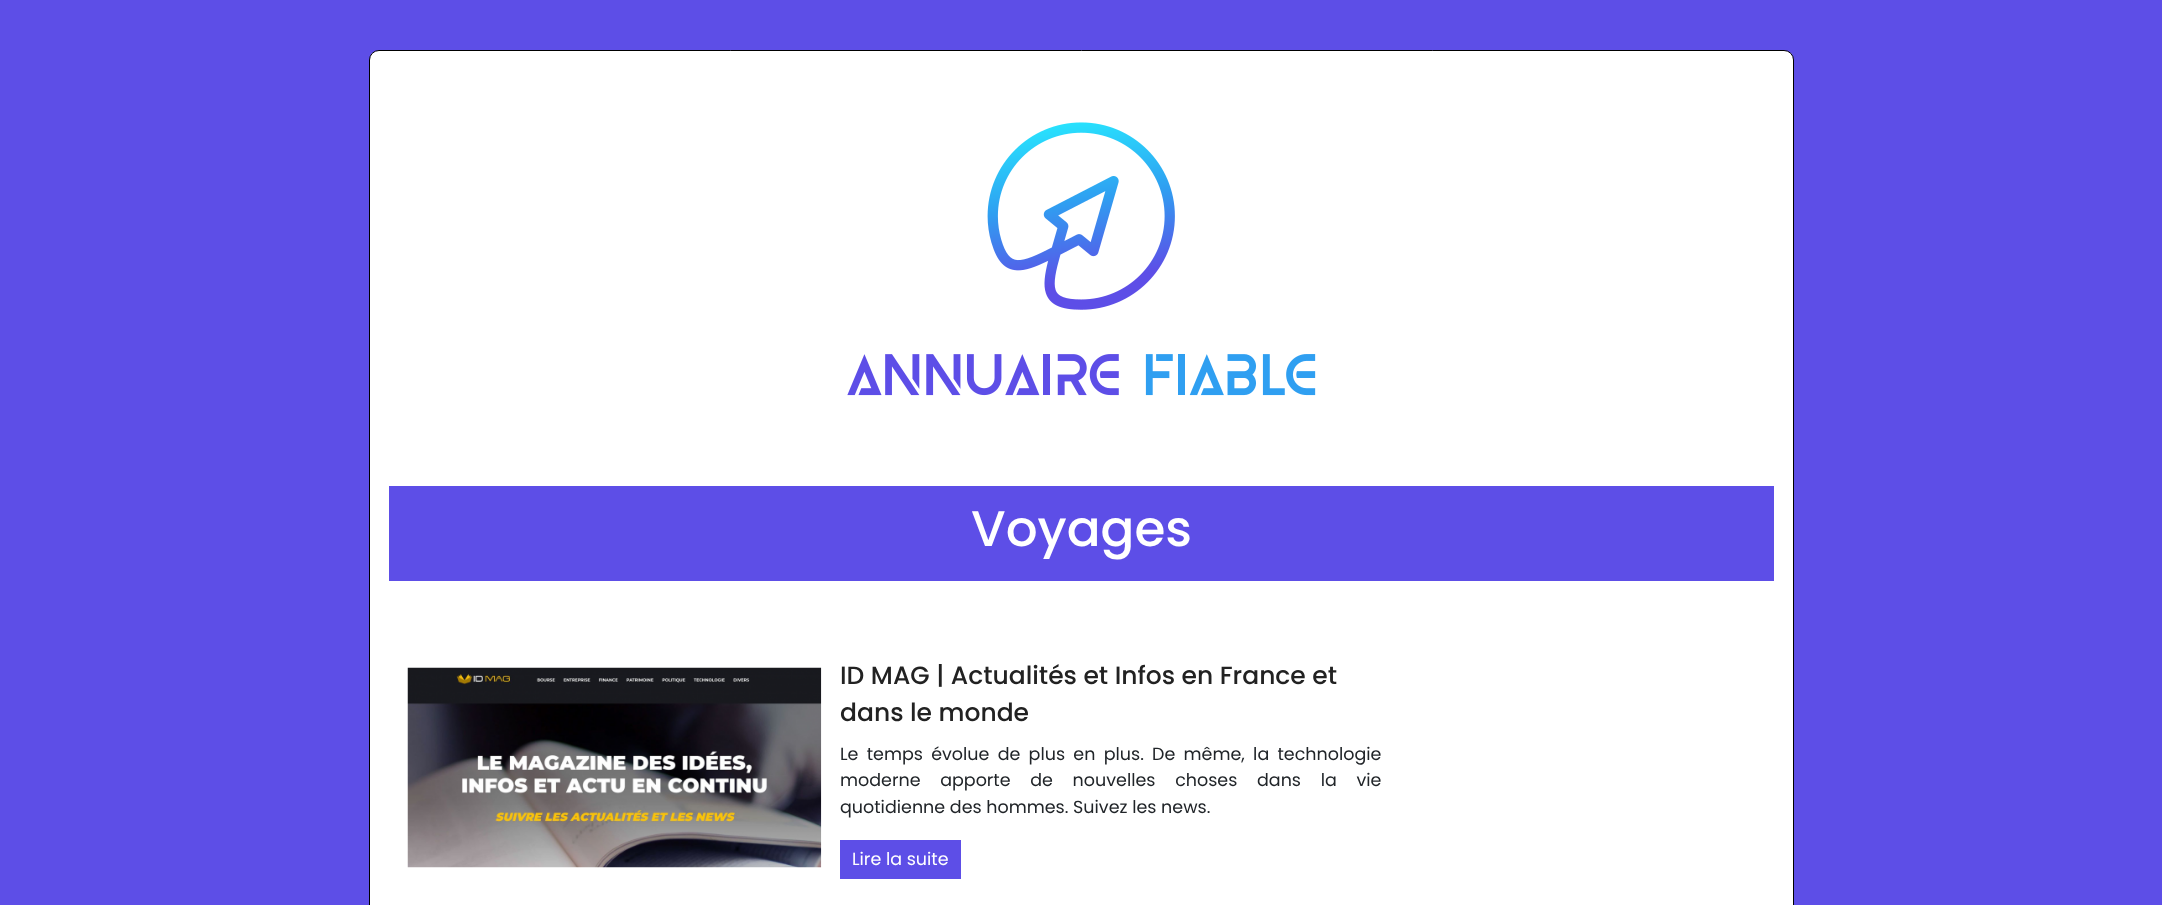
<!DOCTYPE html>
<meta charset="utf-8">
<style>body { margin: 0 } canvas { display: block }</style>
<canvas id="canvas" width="2162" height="905"></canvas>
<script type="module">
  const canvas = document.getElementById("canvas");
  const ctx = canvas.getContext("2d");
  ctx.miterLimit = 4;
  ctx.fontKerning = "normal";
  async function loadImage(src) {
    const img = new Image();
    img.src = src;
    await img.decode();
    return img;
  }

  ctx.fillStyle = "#5d4ee7";
  ctx.fillRect(0, 0, 2162, 905);
  ctx.fillStyle = "#ffffff";
  ctx.beginPath();
  ctx.roundRect(369.5, 50.5, 1424, 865, 9.5);
  ctx.fill();
  ctx.strokeStyle = "#000000";
  ctx.stroke();
  ctx.drawImage(await loadImage("img1.png"), 847, 122, 469, 274);
  ctx.fillStyle = "#5d4ee7";
  ctx.fillRect(389, 486, 1385, 95);
  ctx.font = "500 50px Poppins";
  ctx.fillStyle = "#ffffff";
  ctx.fillText("Voyages", 971, 546);
  ctx.drawImage(await loadImage("img2.png"), 407, 667, 415, 201);
  ctx.font = "500 25px Poppins";
  ctx.fillStyle = "#222222";
  ctx.fillText("ID MAG | Actualités et Infos en France et", 840, 684);
  ctx.fillText("dans le monde", 840, 721);
  ctx.wordSpacing = "3.6px";
  ctx.font = "17.5px Poppins";
  ctx.fillStyle = "#212529";
  ctx.fillText("Le temps évolue de plus en plus. De même, la technologie", 840, 760);
  ctx.wordSpacing = "15px";
  ctx.fillText("moderne apporte de nouvelles choses dans la vie", 840, 786);
  ctx.wordSpacing = "0px";
  ctx.fillText("quotidienne des hommes. Suivez les news.", 840, 813);
  ctx.fillStyle = "#5d4ee7";
  ctx.fillRect(840, 840, 121, 39);
  ctx.fillStyle = "#ffffff";
  ctx.fillText("Lire la suite", 852, 865);
</script>
